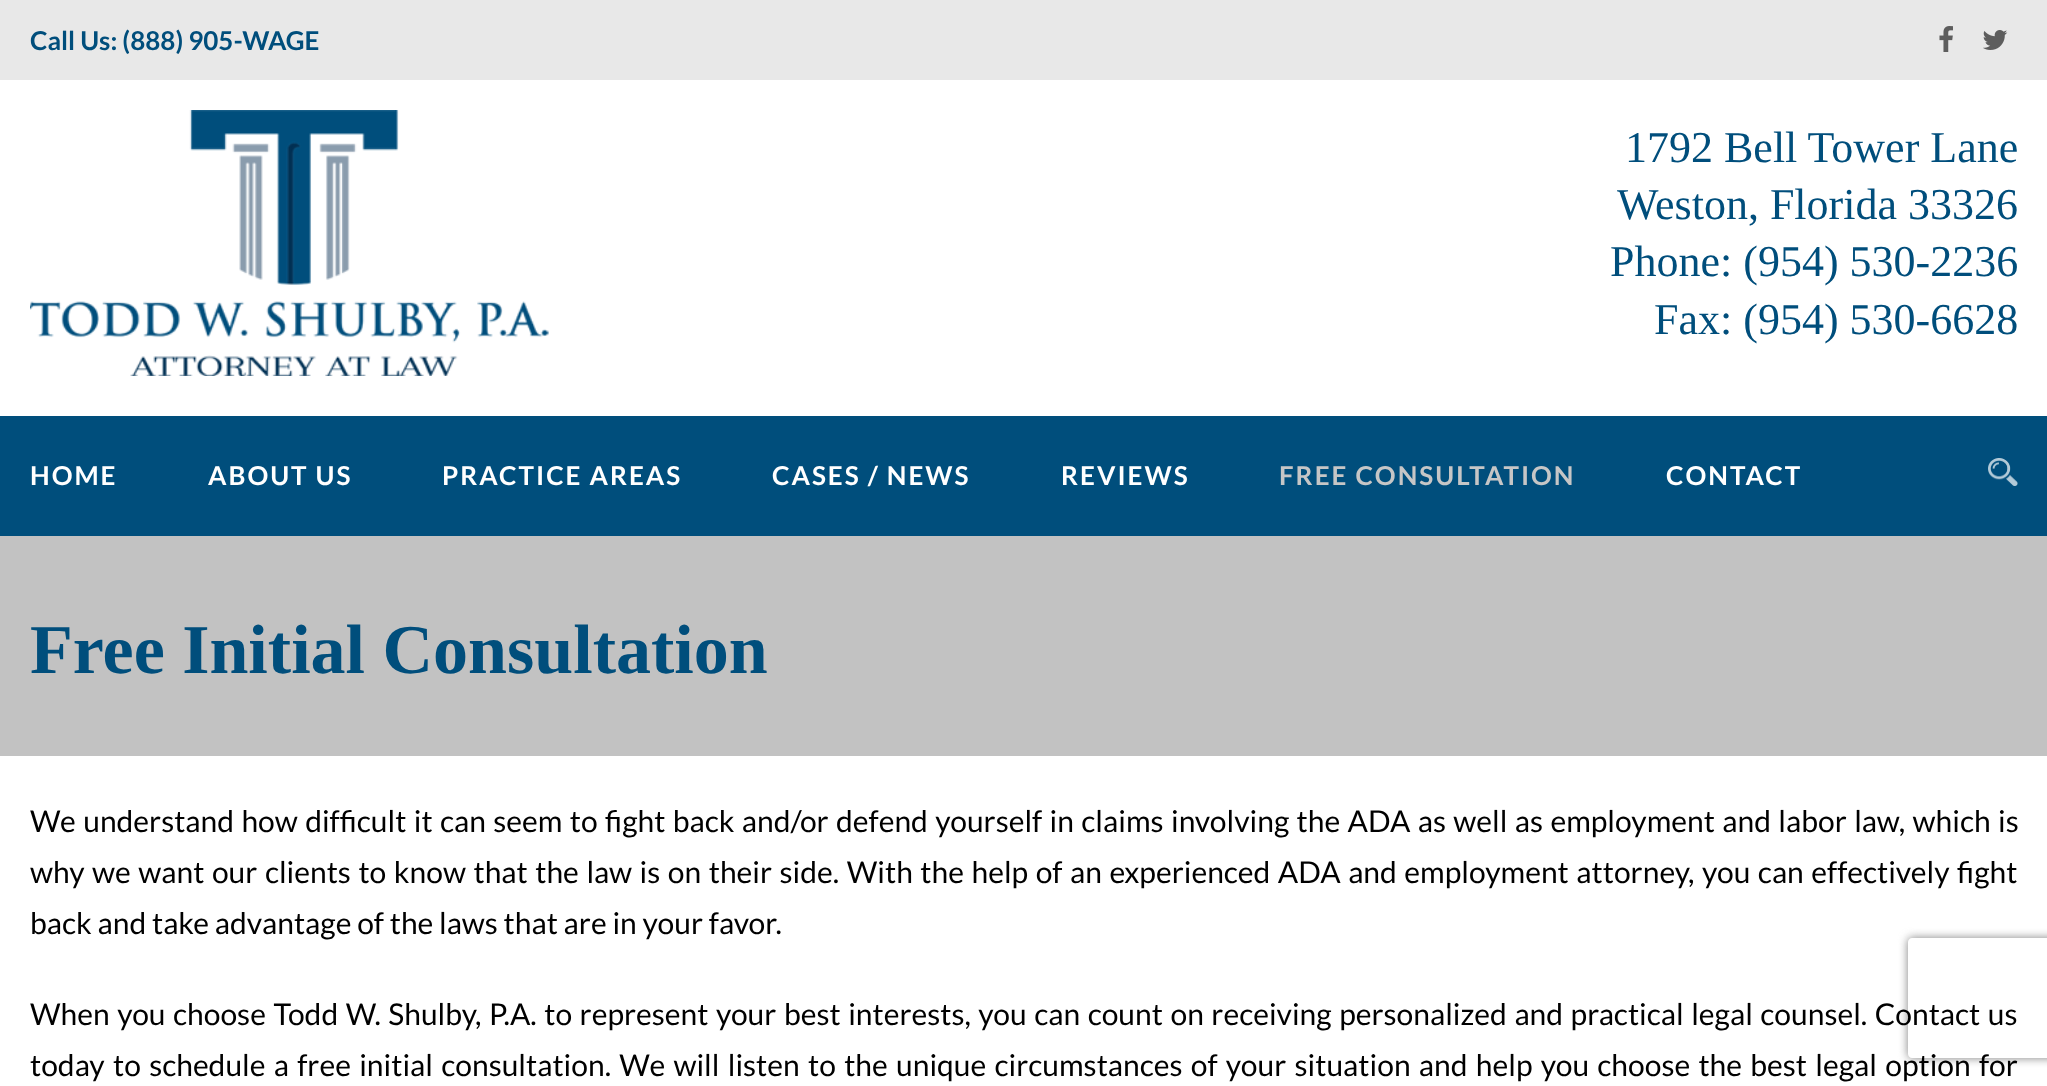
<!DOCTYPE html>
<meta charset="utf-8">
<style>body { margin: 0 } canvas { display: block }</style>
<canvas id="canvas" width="2047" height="1086"></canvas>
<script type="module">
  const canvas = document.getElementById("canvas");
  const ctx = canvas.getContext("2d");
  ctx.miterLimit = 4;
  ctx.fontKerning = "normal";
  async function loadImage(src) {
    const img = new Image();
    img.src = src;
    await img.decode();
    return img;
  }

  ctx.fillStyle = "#ffffff";
  ctx.fillRect(0, 0, 2047, 1086);
  ctx.fillStyle = "#e8e8e8";
  ctx.fillRect(0, 0, 2047, 80);
  ctx.font = "bold 26px Lato";
  ctx.fillStyle = "#004e7c";
  ctx.fillText("Call Us: (888) 905-WAGE", 30, 50);
  ctx.drawImage(await loadImage("img1.png"), 1939, 26, 14, 26);
  ctx.drawImage(await loadImage("img2.png"), 1983, 30, 25, 20);
  ctx.drawImage(await loadImage("img3.png"), 30, 110, 519, 266);
  ctx.font = "44px Liberation Serif";
  ctx.fillText("1792 Bell Tower Lane", 1625, 162);
  ctx.fillText("Weston, Florida 33326", 1617, 219);
  ctx.fillText("Phone: (954) 530-2236", 1610, 276);
  ctx.fillText("Fax: (954) 530-6628", 1654, 334);
  ctx.fillRect(0, 416, 2047, 120);
  ctx.letterSpacing = "2px";
  ctx.font = "bold 26px Lato";
  ctx.fillStyle = "#ffffff";
  ctx.fillText("HOME", 30, 485);
  ctx.fillText("ABOUT US", 208, 485);
  ctx.fillText("PRACTICE AREAS", 442, 485);
  ctx.fillText("CASES / NEWS", 772, 485);
  ctx.fillText("REVIEWS", 1061, 485);
  ctx.fillStyle = "#c6c6c6";
  ctx.fillText("FREE CONSULTATION", 1279, 485);
  ctx.fillStyle = "#ffffff";
  ctx.fillText("CONTACT", 1666, 485);
  ctx.drawImage(await loadImage("img4.png"), 1988, 458, 30, 28);
  ctx.fillStyle = "#c2c2c2";
  ctx.fillRect(0, 536, 2047, 220);
  ctx.letterSpacing = "0px";
  ctx.font = "bold 70px Liberation Serif";
  ctx.fillStyle = "#004e7c";
  ctx.fillText("Free Initial Consultation", 30, 673);
  ctx.wordSpacing = "1.6px";
  ctx.font = "30px Lato";
  ctx.fillStyle = "#000000";
  ctx.fillText("We understand how difficult it can seem to fight back and/or defend yourself in claims involving the ADA as well as employment and labor law, which is", 30, 832);
  ctx.wordSpacing = "1.75px";
  ctx.fillText("why we want our clients to know that the law is on their side. With the help of an experienced ADA and employment attorney, you can effectively fight", 30, 883);
  ctx.wordSpacing = "0px";
  ctx.fillText("back and take advantage of the laws that are in your favor.", 30, 934);
  ctx.save();
  ctx.beginPath();
  ctx.moveTo(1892, 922);
  ctx.lineTo(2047, 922);
  ctx.lineTo(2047, 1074);
  ctx.lineTo(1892, 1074);
  ctx.closePath();
  ctx.moveTo(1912, 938);
  ctx.lineTo(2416, 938);
  ctx.bezierCurveTo(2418, 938, 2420, 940, 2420, 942);
  ctx.lineTo(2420, 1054);
  ctx.bezierCurveTo(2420, 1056, 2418, 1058, 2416, 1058);
  ctx.lineTo(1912, 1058);
  ctx.bezierCurveTo(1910, 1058, 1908, 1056, 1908, 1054);
  ctx.lineTo(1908, 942);
  ctx.bezierCurveTo(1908, 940, 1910, 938, 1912, 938);
  ctx.closePath();
  ctx.clip("evenodd");
  ctx.fillStyle = "#808080";
  ctx.filter = "blur(5px)";
  ctx.beginPath();
  ctx.roundRect(1908, 938, 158, 120, 4);
  ctx.fill();
  ctx.filter = "none";
  ctx.restore();
  ctx.wordSpacing = "1.75px";
  ctx.fillText("When you choose Todd W. Shulby, P.A. to represent your best interests, you can count on receiving personalized and practical legal counsel. Contact us", 30, 1025);
  ctx.wordSpacing = "2.5px";
  ctx.fillText("today to schedule a free initial consultation. We will listen to the unique circumstances of your situation and help you choose the best legal option for", 30, 1076);
</script>
